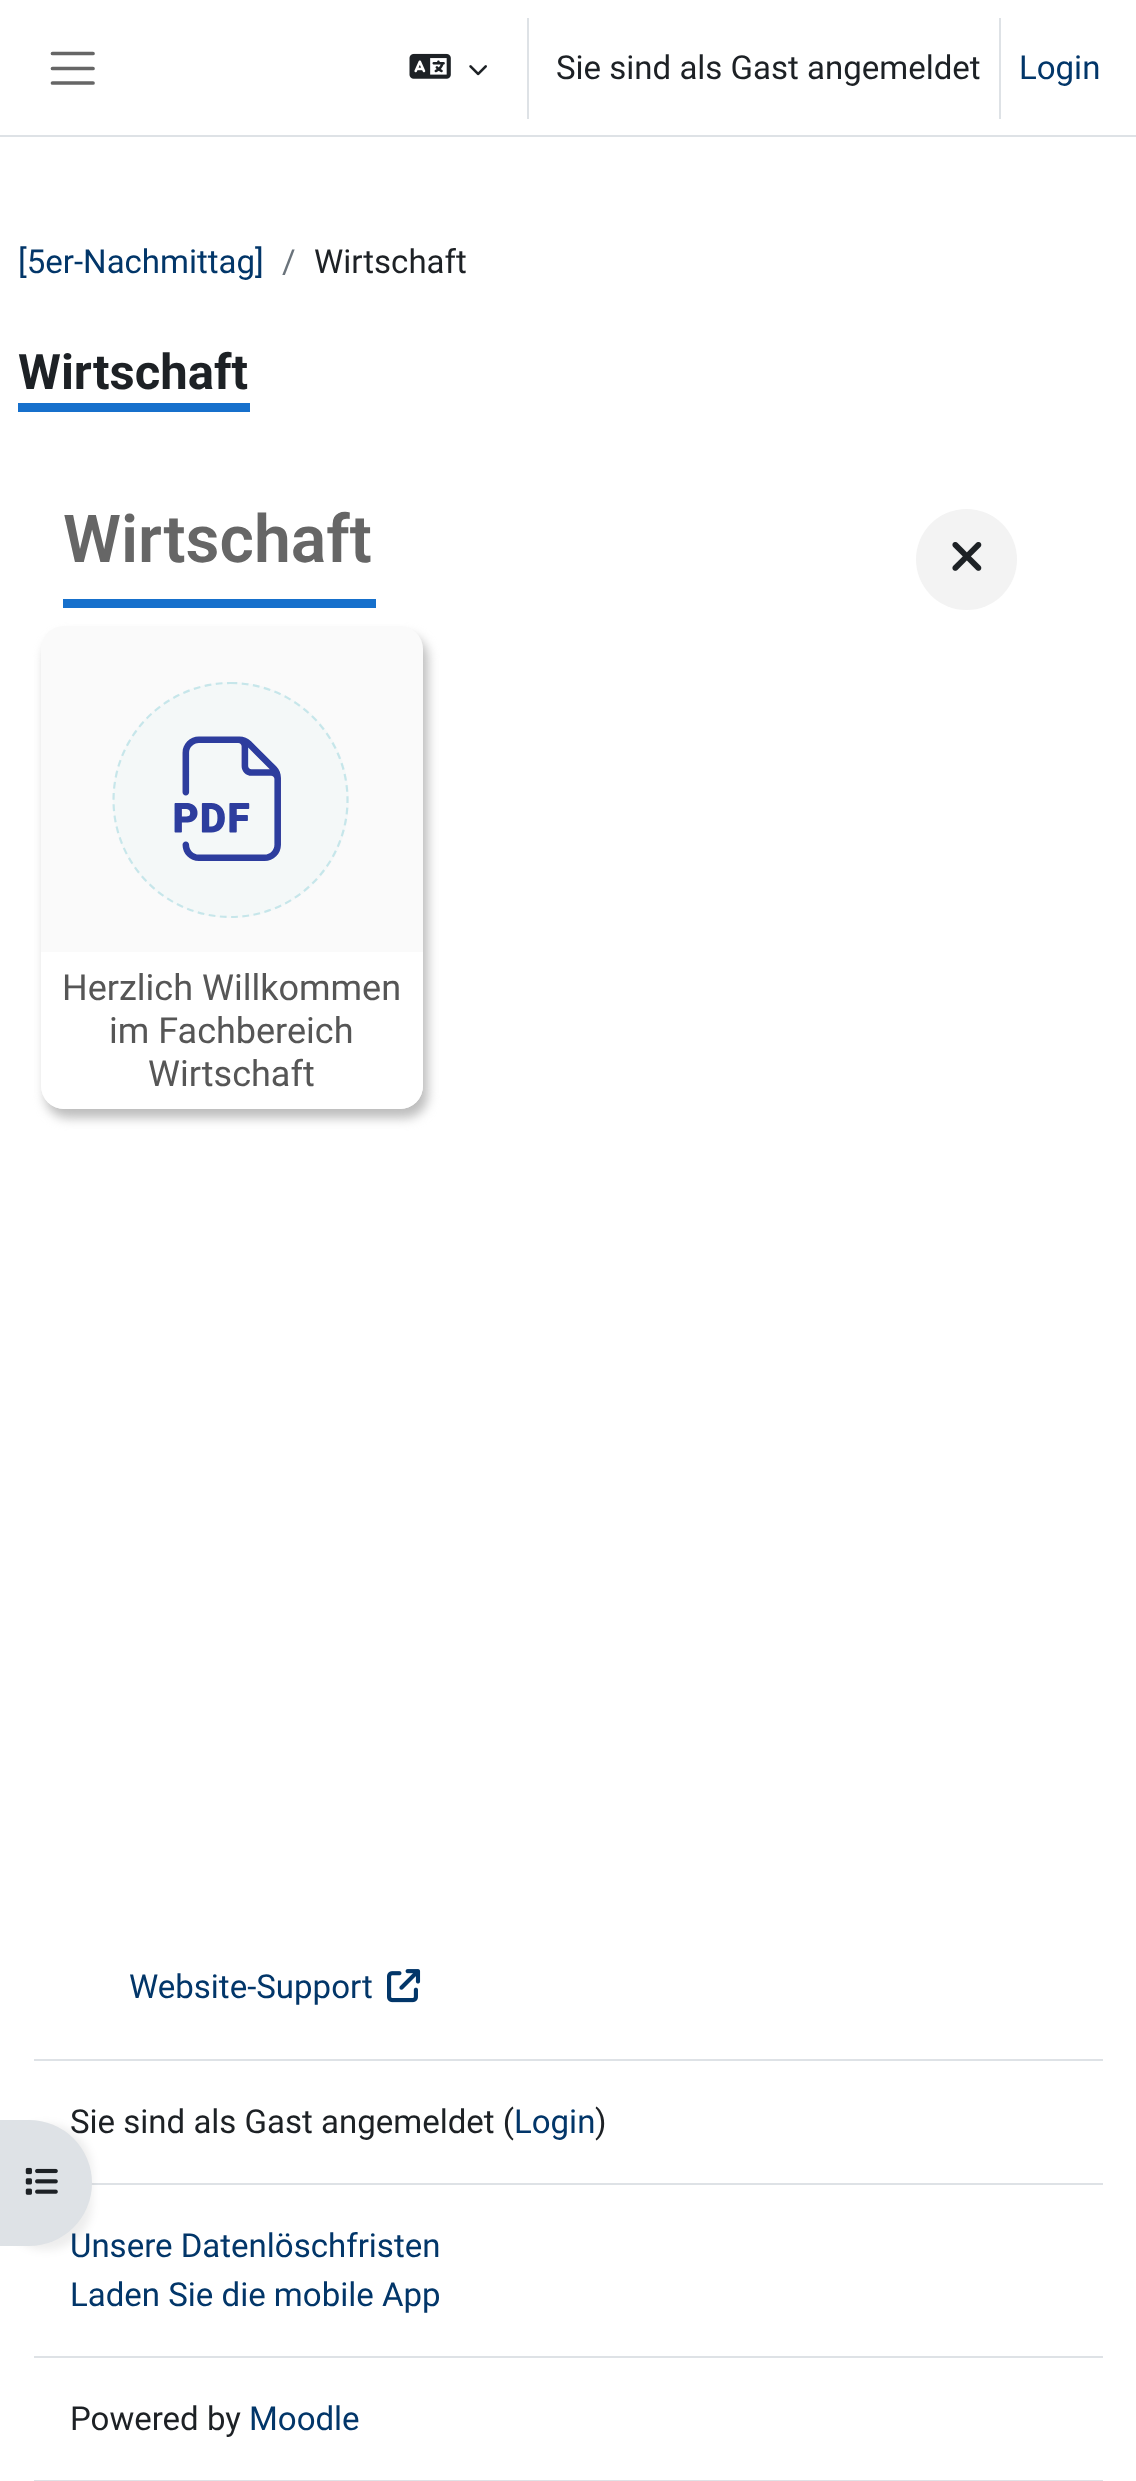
<!DOCTYPE html>
<meta charset="utf-8">
<style>body { margin: 0 } canvas { display: block }</style>
<canvas id="canvas" width="1136" height="2481"></canvas>
<script type="module">
  const canvas = document.getElementById("canvas");
  const ctx = canvas.getContext("2d");
  ctx.miterLimit = 4;
  ctx.fontKerning = "normal";
  async function loadImage(src) {
    const img = new Image();
    img.src = src;
    await img.decode();
    return img;
  }

  ctx.fillStyle = "#ffffff";
  ctx.fillRect(0, 0, 1136, 2481);
  ctx.fillStyle = "#dee2e6";
  ctx.fillRect(0, 135, 1136, 2);
  ctx.beginPath();
  ctx.moveTo(52.5, 53.5);
  ctx.lineTo(93, 53.5);
  ctx.moveTo(52.5, 68.5);
  ctx.lineTo(93, 68.5);
  ctx.moveTo(52.5, 83);
  ctx.lineTo(93, 83);
  ctx.strokeStyle = "#666666";
  ctx.lineWidth = 3.7;
  ctx.lineCap = "round";
  ctx.stroke();
  ctx.drawImage(await loadImage("img1.png"), 409, 53, 42, 26);
  ctx.drawImage(await loadImage("img2.png"), 469, 65, 18, 11);
  ctx.fillRect(527, 18, 2, 101);
  ctx.font = "33px Roboto";
  ctx.fillStyle = "#1d2125";
  ctx.fillText("Sie sind als Gast angemeldet", 556, 79);
  ctx.fillStyle = "#dee2e6";
  ctx.fillRect(999, 18, 2, 101);
  ctx.fillStyle = "#023669";
  ctx.fillText("Login", 1019, 79);
  ctx.fillText("[5er-Nachmittag]", 18, 273);
  ctx.fillStyle = "#6a737b";
  ctx.fillText("/", 282, 273);
  ctx.fillStyle = "#1d2125";
  ctx.fillText("Wirtschaft", 314, 273);
  ctx.font = "bold 49px Roboto";
  ctx.fillText("Wirtschaft", 18, 389);
  ctx.fillStyle = "#1670cc";
  ctx.fillRect(18, 403, 232, 9);
  ctx.font = "600 66px Roboto";
  ctx.fillStyle = "#666666";
  ctx.fillText("Wirtschaft", 63, 562);
  ctx.fillStyle = "#1670cc";
  ctx.fillRect(63, 599, 313, 9);
  ctx.fillStyle = "#f3f3f3";
  ctx.beginPath();
  ctx.arc(966.5, 559.5, 50.5, 0, Math.PI * 2);
  ctx.fill();
  ctx.drawImage(await loadImage("img3.png"), 952, 542, 30, 29);
  ctx.fillStyle = "#bdbdbd";
  ctx.filter = "blur(5.5px)";
  ctx.beginPath();
  ctx.roundRect(45, 635, 383, 483, 23);
  ctx.fill();
  ctx.filter = "none";
  ctx.fillStyle = "#fafafa";
  ctx.beginPath();
  ctx.roundRect(41, 626, 382, 483, 23);
  ctx.fill();
  ctx.fillStyle = "#f4f8f8";
  ctx.beginPath();
  ctx.arc(231, 800, 118, 0, Math.PI * 2);
  ctx.fill();
  ctx.beginPath();
  ctx.moveTo(230.5, 683);
  ctx.bezierCurveTo(295, 683, 347.5, 735.5, 347.5, 800);
  ctx.bezierCurveTo(347.5, 864.5, 295, 917, 230.5, 917);
  ctx.bezierCurveTo(166, 917, 113.5, 864.5, 113.5, 800);
  ctx.bezierCurveTo(113.5, 735.5, 166, 683, 230.5, 683);
  ctx.closePath();
  ctx.strokeStyle = "rgba(0, 153, 173, 0.19)";
  ctx.lineWidth = 2.2;
  ctx.lineCap = "butt";
  ctx.setLineDash([6.75, 4.5]);
  ctx.stroke();
  ctx.drawImage(await loadImage("img4.png"), 174, 736, 107, 125);
  ctx.fillStyle = "#ffffff";
  ctx.beginPath();
  ctx.roundRect(41, 952, 382, 157, [0, 0, 23, 23]);
  ctx.fill();
  ctx.font = "36px Roboto";
  ctx.fillStyle = "#565656";
  ctx.fillText("Herzlich Willkommen", 62, 1000);
  ctx.fillText("im Fachbereich", 109, 1043);
  ctx.fillText("Wirtschaft", 148, 1086);
  ctx.fillStyle = "#dee2e6";
  ctx.fillRect(91, 2183, 1012, 2);
  ctx.fillStyle = "rgba(0, 0, 0, 0.07)";
  ctx.filter = "blur(4.5px)";
  ctx.beginPath();
  ctx.roundRect(0, 2124, 92, 126, 63);
  ctx.fill();
  ctx.filter = "none";
  ctx.font = "33px Roboto";
  ctx.fillStyle = "#1d2125";
  ctx.fillText("Sie sind als Gast angemeldet (", 70, 2133);
  ctx.fillStyle = "#023669";
  ctx.fillText("Unsere Datenlöschfristen", 70, 2257);
  ctx.fillStyle = "#dee2e6";
  ctx.beginPath();
  ctx.roundRect(0, 2120, 92, 126, [0, 63, 63, 0]);
  ctx.fill();
  ctx.drawImage(await loadImage("img5.png"), 25, 2167, 33, 28);
  ctx.fillRect(34, 2059, 1069, 2);
  ctx.fillStyle = "#023669";
  ctx.fillText("Website-Support", 129, 1998);
  ctx.drawImage(await loadImage("img6.png"), 387, 1969, 34, 34);
  ctx.fillText("Login", 514, 2133);
  ctx.fillStyle = "#1d2125";
  ctx.fillText(")", 595, 2133);
  ctx.fillStyle = "#dee2e6";
  ctx.fillRect(34, 2356, 1069, 2);
  ctx.fillStyle = "#023669";
  ctx.fillText("Laden Sie die mobile App", 70, 2306);
  ctx.fillStyle = "#dee2e6";
  ctx.fillRect(34, 2480, 1069, 1);
  ctx.fillStyle = "#1d2125";
  ctx.fillText("Powered by", 70, 2430);
  ctx.fillStyle = "#023669";
  ctx.fillText("Moodle", 249, 2430);
</script>
